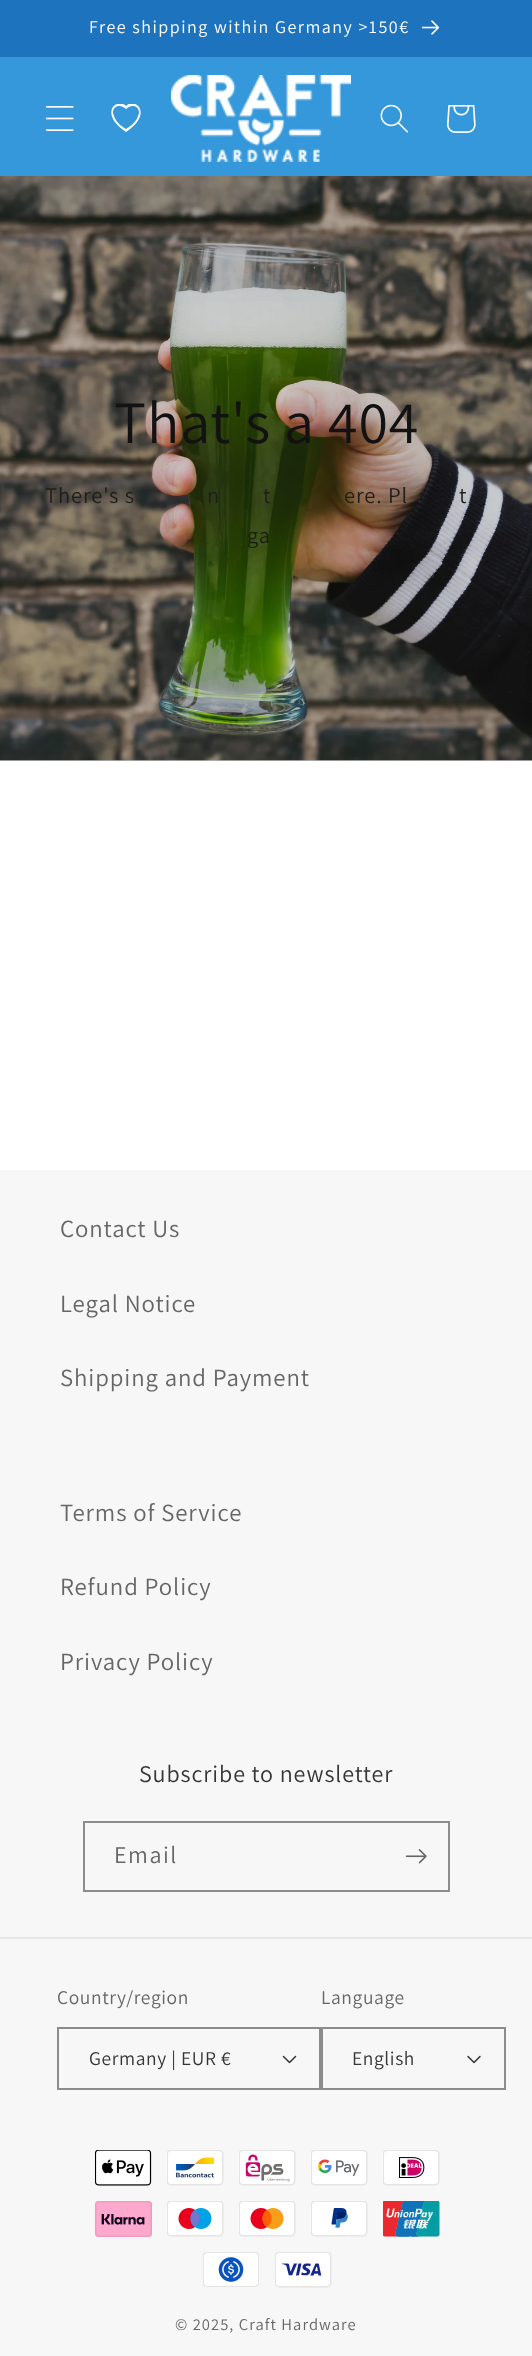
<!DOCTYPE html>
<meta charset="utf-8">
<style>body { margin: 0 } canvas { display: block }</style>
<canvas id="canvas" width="532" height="2356"></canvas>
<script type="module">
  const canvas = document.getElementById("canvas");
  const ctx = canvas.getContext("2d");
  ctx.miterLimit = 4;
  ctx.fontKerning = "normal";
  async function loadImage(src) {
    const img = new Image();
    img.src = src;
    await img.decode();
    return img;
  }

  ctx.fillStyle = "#ffffff";
  ctx.fillRect(0, 0, 532, 2356);
  ctx.fillStyle = "#1e73be";
  ctx.fillRect(0, 0, 532, 57);
  ctx.letterSpacing = "1.5px";
  ctx.font = "18px Assistant";
  ctx.fillStyle = "#ffffff";
  ctx.fillText("Free shipping within Germany >150€", 89, 33);
  ctx.drawImage(await loadImage("img1.png"), 422, 20, 18, 15);
  ctx.fillStyle = "#3498db";
  ctx.fillRect(0, 57, 532, 119);
  ctx.drawImage(await loadImage("img2.png"), 45, 106, 29, 25);
  ctx.save();
  ctx.beginPath();
  ctx.rect(111, 104, 30, 30);
  ctx.clip();
  ctx.fillStyle = "#ffffff";
  ctx.beginPath();
  ctx.moveTo(126, 109);
  ctx.bezierCurveTo(119, 102, 110, 108, 114, 116);
  ctx.bezierCurveTo(116, 122, 121, 126, 126, 129);
  ctx.bezierCurveTo(131, 126, 136, 122, 138, 116);
  ctx.bezierCurveTo(142, 108, 133, 102, 126, 109);
  ctx.closePath();
  ctx.moveTo(126, 132);
  ctx.bezierCurveTo(98, 113, 117, 97, 126, 106);
  ctx.bezierCurveTo(135, 97, 154, 113, 126, 132);
  ctx.closePath();
  ctx.fill();
  ctx.restore();
  ctx.drawImage(await loadImage("img3.png"), 171, 75, 180, 87);
  ctx.drawImage(await loadImage("img4.png"), 380, 104, 28, 29);
  ctx.drawImage(await loadImage("img5.png"), 447, 105, 29, 28);
  ctx.fillStyle = "#bababa";
  ctx.fillRect(0, 760, 532, 1);
  ctx.drawImage(await loadImage("img6.png"), 0, 176, 532, 585);
  ctx.letterSpacing = "0.9px";
  ctx.font = "60px Assistant";
  ctx.fillStyle = "#121212";
  ctx.fillText("That's a 404", 114, 443);
  ctx.font = "22.5px Assistant";
  ctx.fillStyle = "#1f1e19";
  ctx.fillText("There's s", 45, 503);
  ctx.fillText("n", 207, 503);
  ctx.fillText("t", 263, 503);
  ctx.fillText("ere. Pl", 344, 503);
  ctx.fillText("t", 459, 503);
  ctx.fillStyle = "#191e11";
  ctx.fillText("ga", 247, 543);
  ctx.fillStyle = "#f7f7f7";
  ctx.fillRect(0, 1170, 532, 1186);
  ctx.font = "24.75px Assistant";
  ctx.fillStyle = "#666666";
  ctx.fillText("Contact Us", 60, 1237);
  ctx.fillText("Legal Notice", 60, 1312);
  ctx.fillText("Shipping and Payment", 60, 1386);
  ctx.fillText("Terms of Service", 60, 1521);
  ctx.fillText("Refund Policy", 60, 1595);
  ctx.fillText("Privacy Policy", 60, 1670);
  ctx.font = "24px Assistant";
  ctx.fillStyle = "#353535";
  ctx.fillText("Subscribe to newsletter", 139, 1782);
  ctx.strokeStyle = "#8c8c8c";
  ctx.lineWidth = 2;
  ctx.strokeRect(84, 1822, 365, 69);
  ctx.letterSpacing = "1.5px";
  ctx.fillStyle = "#666666";
  ctx.fillText("Email", 114, 1863);
  ctx.drawImage(await loadImage("img7.png"), 405, 1849, 22, 15);
  ctx.fillStyle = "#e7e7e7";
  ctx.fillRect(0, 1937, 532, 2);
  ctx.letterSpacing = "0.6px";
  ctx.font = "19.5px Assistant";
  ctx.fillStyle = "#666666";
  ctx.fillText("Country/region", 57, 2004);
  ctx.drawImage(await loadImage("img8.png"), 282, 2055, 15, 9);
  ctx.strokeRect(58, 2028, 262, 61);
  ctx.fillStyle = "#353535";
  ctx.fillText("Germany | EUR €", 89, 2065);
  ctx.fillStyle = "#666666";
  ctx.fillText("Language", 321, 2004);
  ctx.drawImage(await loadImage("img9.png"), 467, 2055, 14, 9);
  ctx.strokeRect(322, 2028, 183, 61);
  ctx.fillStyle = "#353535";
  ctx.fillText("English", 352, 2065);
  ctx.drawImage(await loadImage("img10.png"), 95, 2150, 57, 36);
  ctx.drawImage(await loadImage("img11.png"), 167, 2150, 57, 36);
  ctx.drawImage(await loadImage("img12.png"), 239, 2150, 57, 36);
  ctx.drawImage(await loadImage("img13.png"), 311, 2150, 57, 36);
  ctx.drawImage(await loadImage("img14.png"), 383, 2150, 57, 36);
  ctx.drawImage(await loadImage("img15.png"), 95, 2201, 57, 36);
  ctx.drawImage(await loadImage("img16.png"), 167, 2201, 57, 36);
  ctx.drawImage(await loadImage("img17.png"), 239, 2201, 57, 36);
  ctx.drawImage(await loadImage("img18.png"), 311, 2201, 57, 36);
  ctx.drawImage(await loadImage("img19.png"), 383, 2201, 57, 36);
  ctx.drawImage(await loadImage("img20.png"), 203, 2252, 56, 35);
  ctx.drawImage(await loadImage("img21.png"), 275, 2252, 57, 36);
  ctx.letterSpacing = "1.05px";
  ctx.font = "16.5px Assistant";
  ctx.fillStyle = "#666666";
  ctx.fillText("© 2025, Craft Hardware", 175, 2330);
</script>
